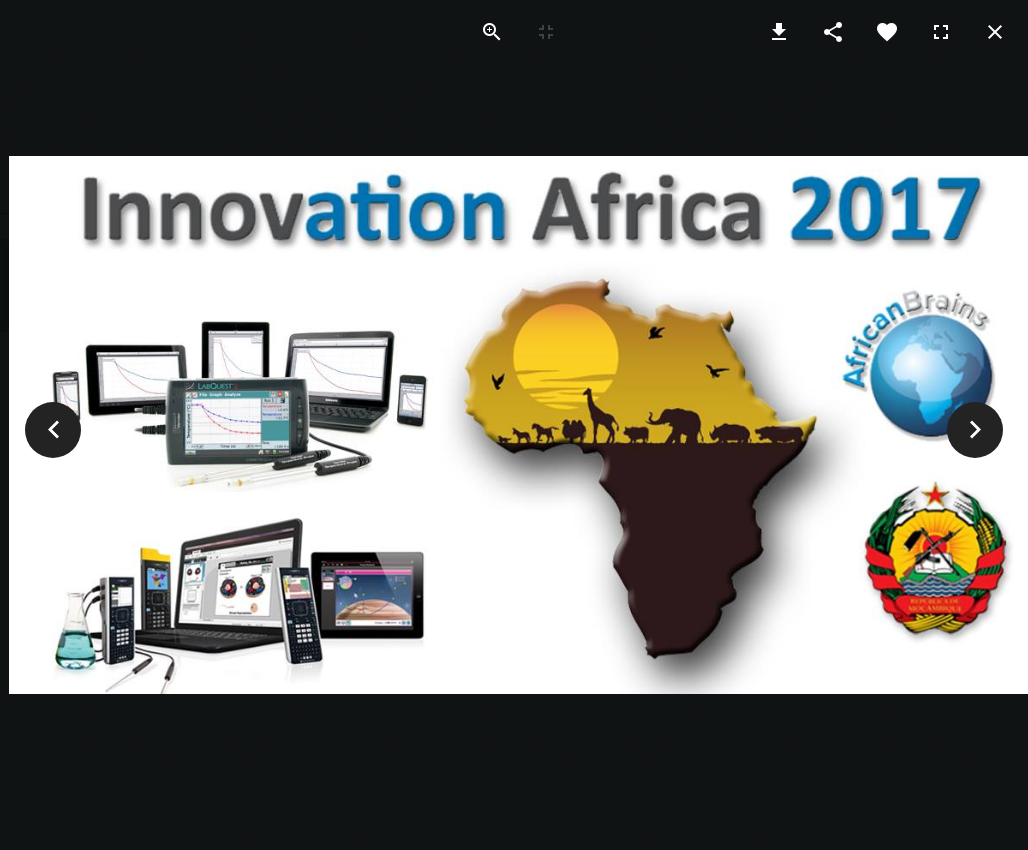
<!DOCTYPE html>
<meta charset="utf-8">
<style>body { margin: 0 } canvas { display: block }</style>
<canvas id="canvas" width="1028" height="850"></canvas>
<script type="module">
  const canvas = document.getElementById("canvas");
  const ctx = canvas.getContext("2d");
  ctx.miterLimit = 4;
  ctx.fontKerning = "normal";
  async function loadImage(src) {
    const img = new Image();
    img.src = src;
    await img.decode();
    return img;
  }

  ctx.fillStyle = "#ffffff";
  ctx.fillRect(0, 0, 1028, 850);
  ctx.drawImage(await loadImage("img1.png"), 0, 0, 1028, 850);
  ctx.fillStyle = "#0b0b0b";
  ctx.fillRect(0, 213, 9, 1);
  ctx.drawImage(await loadImage("img2.png"), 483, 23, 18, 18);
  ctx.drawImage(await loadImage("img3.png"), 539, 25, 14, 14);
  ctx.drawImage(await loadImage("img4.png"), 772, 23, 14, 17);
  ctx.drawImage(await loadImage("img5.png"), 824, 22, 18, 20);
  ctx.drawImage(await loadImage("img6.png"), 877, 23, 20, 19);
  ctx.drawImage(await loadImage("img7.png"), 934, 25, 14, 14);
  ctx.drawImage(await loadImage("img8.png"), 988, 25, 14, 14);
  ctx.fillStyle = "rgba(8, 14, 13, 0.85)";
  ctx.fillRect(5, 244, 4, 83);
  ctx.strokeStyle = "#0b100f";
  ctx.lineWidth = 5;
  ctx.strokeRect(2.5, 241.5, 1007, 88);
  ctx.fillStyle = "#ffffff";
  ctx.fillRect(9, 156, 1019, 538);
  ctx.drawImage(await loadImage("img9.png"), 50, 169, 964, 525);
  ctx.fillStyle = "#232323";
  ctx.beginPath();
  ctx.arc(53, 430, 28, 0, Math.PI * 2);
  ctx.fill();
  ctx.fillStyle = "#ffffff";
  ctx.beginPath();
  ctx.moveTo(59, 422.5);
  ctx.lineTo(52, 429.5);
  ctx.lineTo(59, 436.5);
  ctx.lineTo(57, 438.5);
  ctx.lineTo(48, 429.5);
  ctx.lineTo(57, 420.5);
  ctx.closePath();
  ctx.fill();
  ctx.fillStyle = "#232323";
  ctx.beginPath();
  ctx.arc(975, 430, 28, 0, Math.PI * 2);
  ctx.fill();
  ctx.fillStyle = "#ffffff";
  ctx.beginPath();
  ctx.moveTo(972, 420.5);
  ctx.lineTo(981, 429.5);
  ctx.lineTo(972, 438.5);
  ctx.lineTo(970, 436.5);
  ctx.lineTo(977, 429.5);
  ctx.lineTo(970, 422.5);
  ctx.closePath();
  ctx.fill();
</script>
